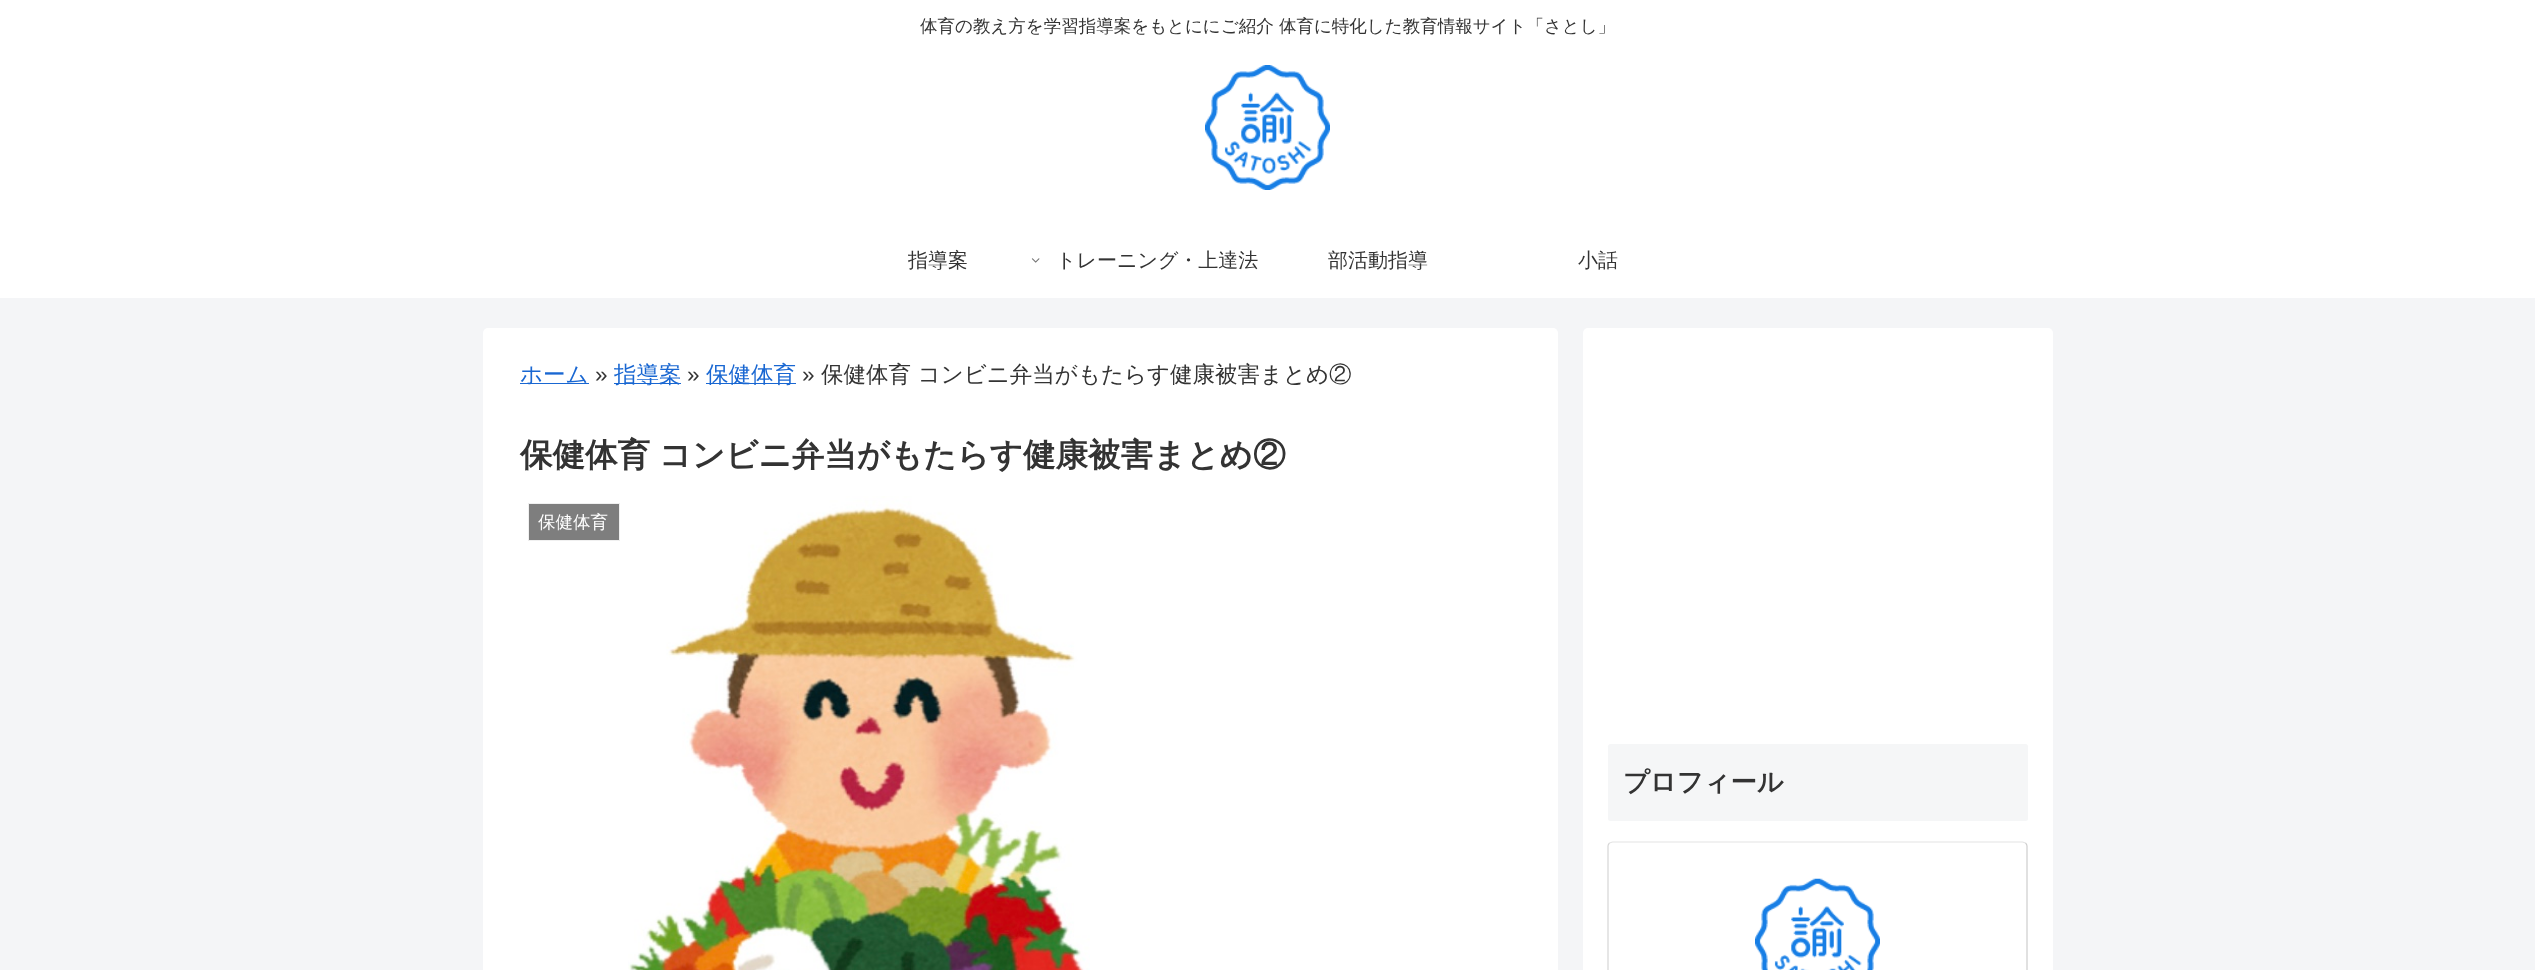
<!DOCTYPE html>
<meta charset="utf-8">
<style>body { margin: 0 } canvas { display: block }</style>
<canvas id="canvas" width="2535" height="970"></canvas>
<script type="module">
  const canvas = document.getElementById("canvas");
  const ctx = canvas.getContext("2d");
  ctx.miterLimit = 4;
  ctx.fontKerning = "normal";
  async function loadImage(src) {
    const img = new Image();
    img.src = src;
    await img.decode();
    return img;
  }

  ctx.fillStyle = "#f4f5f7";
  ctx.fillRect(0, 0, 2535, 970);
  ctx.fillStyle = "#ffffff";
  ctx.fillRect(0, 0, 2535, 298);
  ctx.font = "500 17.5px WenQuanYi Zen Hei";
  ctx.fillStyle = "#333333";
  ctx.fillText("体育の教え方を学習指導案をもとににご紹介 体育に特化した教育情報サイト「さとし」", 920, 32);
  ctx.drawImage(await loadImage("img1.png"), 1205, 65, 125, 125);
  ctx.font = "500 20px WenQuanYi Zen Hei";
  ctx.fillText("指導案", 908, 267);
  ctx.drawImage(await loadImage("img2.png"), 1031, 258, 9, 5);
  ctx.fillText("トレーニング・上達法", 1056, 267);
  ctx.fillText("部活動指導", 1328, 267);
  ctx.fillText("小話", 1578, 267);
  ctx.fillStyle = "#ffffff";
  ctx.beginPath();
  ctx.roundRect(483, 328, 1075, 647, 5);
  ctx.fill();
  ctx.fillStyle = "#1967d2";
  ctx.fillRect(520, 383, 69, 1);
  ctx.font = "500 22.5px WenQuanYi Zen Hei";
  ctx.fillText("ホーム", 520, 382);
  ctx.font = "22.5px Liberation Sans";
  ctx.fillStyle = "#333333";
  ctx.fillText("»", 595, 382);
  ctx.fillStyle = "#1967d2";
  ctx.fillRect(614, 383, 67, 1);
  ctx.font = "500 22.5px WenQuanYi Zen Hei";
  ctx.fillText("指導案", 614, 382);
  ctx.font = "22.5px Liberation Sans";
  ctx.fillStyle = "#333333";
  ctx.fillText("»", 687, 382);
  ctx.fillStyle = "#1967d2";
  ctx.fillRect(706, 383, 90, 1);
  ctx.font = "500 22.5px WenQuanYi Zen Hei";
  ctx.fillText("保健体育", 706, 382);
  ctx.font = "22.5px Liberation Sans";
  ctx.fillStyle = "#333333";
  ctx.fillText("»", 802, 382);
  ctx.font = "500 22.5px WenQuanYi Zen Hei";
  ctx.fillText("保健体育 コンビニ弁当がもたらす健康被害まとめ②", 821, 382);
  ctx.wordSpacing = "-1px";
  ctx.font = "bold 32.5px WenQuanYi Zen Hei";
  ctx.fillText("保健体育 コンビニ弁当がもたらす健康被害まとめ②", 520, 466);
  ctx.fillStyle = "#7e7e7e";
  ctx.beginPath();
  ctx.rect(528.5, 503.5, 91, 37);
  ctx.fill();
  ctx.strokeStyle = "#f0f0f0";
  ctx.stroke();
  ctx.wordSpacing = "0px";
  ctx.font = "500 17.5px WenQuanYi Zen Hei";
  ctx.fillStyle = "#ffffff";
  ctx.fillText("保健体育", 538, 528);
  ctx.drawImage(await loadImage("img3.png"), 628, 496, 462, 474);
  ctx.beginPath();
  ctx.roundRect(1583, 328, 470, 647, 5);
  ctx.fill();
  ctx.fillStyle = "#f5f6f7";
  ctx.beginPath();
  ctx.roundRect(1608, 744, 420, 77, 2.5);
  ctx.fill();
  ctx.font = "bold 26.25px WenQuanYi Zen Hei";
  ctx.fillStyle = "#333333";
  ctx.fillText("プロフィール", 1623, 791);
  ctx.beginPath();
  ctx.moveTo(1609.5, 843);
  ctx.lineTo(1612.5, 842);
  ctx.lineTo(2022.5, 842);
  ctx.lineTo(2025.5, 843);
  ctx.strokeStyle = "#e3e3e3";
  ctx.lineWidth = 1.2;
  ctx.stroke();
  ctx.beginPath();
  ctx.moveTo(2025.5, 843);
  ctx.bezierCurveTo(2026.5, 844, 2027, 845, 2027, 846);
  ctx.lineTo(2027, 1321);
  ctx.bezierCurveTo(2027, 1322.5, 2026.5, 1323.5, 2025.5, 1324.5);
  ctx.strokeStyle = "#cecece";
  ctx.stroke();
  ctx.beginPath();
  ctx.moveTo(1609.5, 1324.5);
  ctx.bezierCurveTo(1608.5, 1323.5, 1608, 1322.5, 1608, 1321);
  ctx.lineTo(1608, 846);
  ctx.bezierCurveTo(1608, 845, 1608.5, 844, 1609.5, 843);
  ctx.strokeStyle = "#d6d6d6";
  ctx.stroke();
  ctx.drawImage(await loadImage("img4.png"), 1755, 878, 125, 92);
</script>
